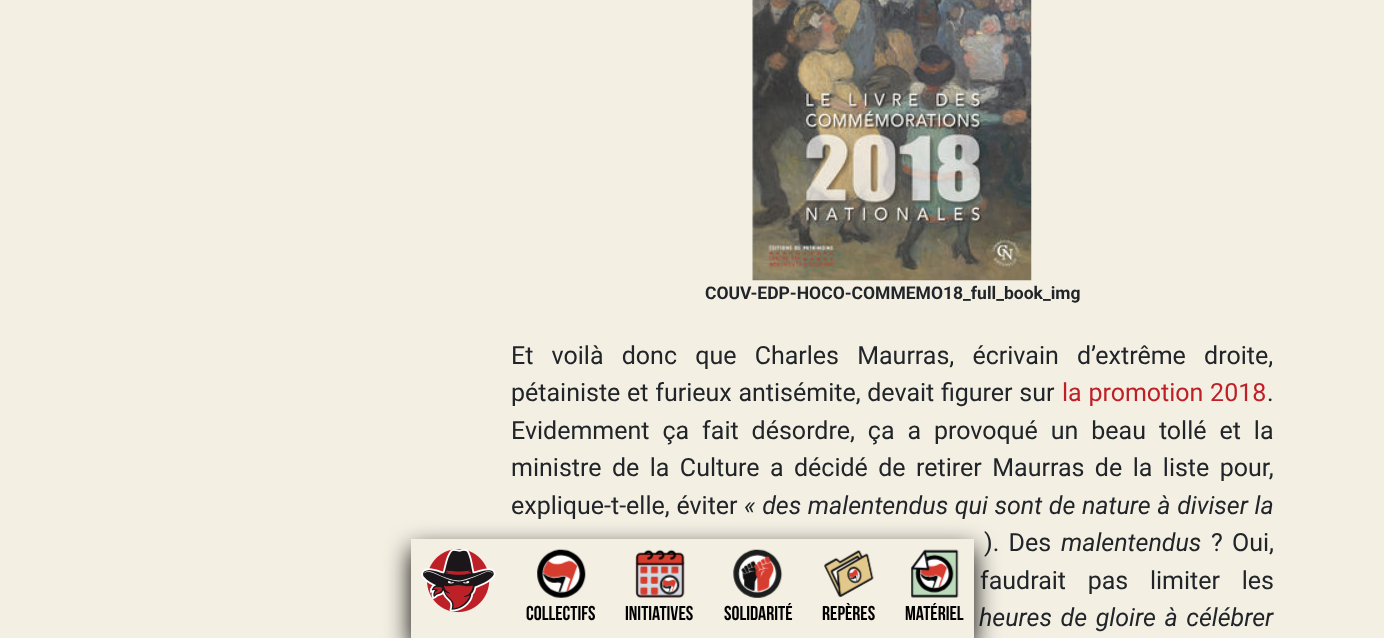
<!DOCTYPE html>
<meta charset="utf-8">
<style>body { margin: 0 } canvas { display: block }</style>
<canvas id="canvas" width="1384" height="638"></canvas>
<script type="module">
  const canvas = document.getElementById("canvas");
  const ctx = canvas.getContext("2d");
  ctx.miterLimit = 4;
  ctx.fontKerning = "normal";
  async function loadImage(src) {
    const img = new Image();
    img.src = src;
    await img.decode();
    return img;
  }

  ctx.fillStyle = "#f3efe3";
  ctx.fillRect(0, 0, 1384, 638);
  ctx.drawImage(await loadImage("img1.png"), 752, 0, 280, 281);
  ctx.font = "bold 17.5px Roboto";
  ctx.fillStyle = "#212529";
  ctx.fillText("COUV-EDP-HOCO-COMMEMO18_full_book_img", 705, 299);
  ctx.wordSpacing = "12px";
  ctx.font = "25px Roboto";
  ctx.fillText("Et voilà donc que Charles Maurras, écrivain d’extrême droite,", 511, 364);
  ctx.wordSpacing = "0.5px";
  ctx.fillText("pétainiste et furieux antisémite, devait figurer sur", 511, 401);
  ctx.fillStyle = "#be2028";
  ctx.fillText("la promotion 2018", 1062, 401);
  ctx.wordSpacing = "0px";
  ctx.fillStyle = "#212529";
  ctx.fillText(".", 1267, 401);
  ctx.wordSpacing = "6.75px";
  ctx.fillText("Evidemment ça fait désordre, ça a provoqué un beau tollé et la", 511, 439);
  ctx.wordSpacing = "4.25px";
  ctx.fillText("ministre de la Culture a décidé de retirer Maurras de la liste pour,", 511, 476);
  ctx.wordSpacing = "0.5px";
  ctx.fillText("explique-t-elle, éviter", 511, 514);
  ctx.font = "italic 25px Roboto";
  ctx.fillText("« des malentendus qui sont de nature à diviser la", 744, 514);
  ctx.wordSpacing = "3px";
  ctx.font = "25px Roboto";
  ctx.fillText("). Des", 984, 551);
  ctx.wordSpacing = "0px";
  ctx.font = "italic 25px Roboto";
  ctx.fillText("malentendus", 1061, 551);
  ctx.wordSpacing = "3px";
  ctx.font = "25px Roboto";
  ctx.fillText("? Oui,", 1211, 551);
  ctx.wordSpacing = "15.5px";
  ctx.fillText("faudrait pas limiter les", 980, 589);
  ctx.save();
  ctx.beginPath();
  ctx.rect(511, 0, 763, 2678);
  ctx.clip();
  ctx.wordSpacing = "2.5px";
  ctx.font = "italic 25px Roboto";
  ctx.fillText("heures de gloire à célébrer", 979, 626);
  ctx.restore();
  ctx.fillStyle = "#000000";
  ctx.filter = "blur(12.5px)";
  ctx.beginPath();
  ctx.rect(411, 549, 563, 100);
  ctx.fill();
  ctx.filter = "none";
  ctx.fillStyle = "#f3efe3";
  ctx.fillRect(411, 539, 563, 99);
  ctx.drawImage(await loadImage("img2.png"), 421, 549, 75, 64);
  ctx.drawImage(await loadImage("img3.png"), 537, 549, 49, 49);
  ctx.wordSpacing = "0px";
  ctx.font = "20px Bebas Neue";
  ctx.fillStyle = "#000000";
  ctx.fillText("Collectifs", 526, 620);
  ctx.drawImage(await loadImage("img4.png"), 635, 549, 50, 49);
  ctx.fillText("Initiatives", 625, 620);
  ctx.drawImage(await loadImage("img5.png"), 733, 549, 50, 49);
  ctx.fillText("Solidarité", 724, 620);
  ctx.drawImage(await loadImage("img6.png"), 824, 549, 50, 48);
  ctx.fillText("Repères", 822, 620);
  ctx.drawImage(await loadImage("img7.png"), 911, 549, 48, 49);
  ctx.fillText("Matériel", 905, 620);
</script>
